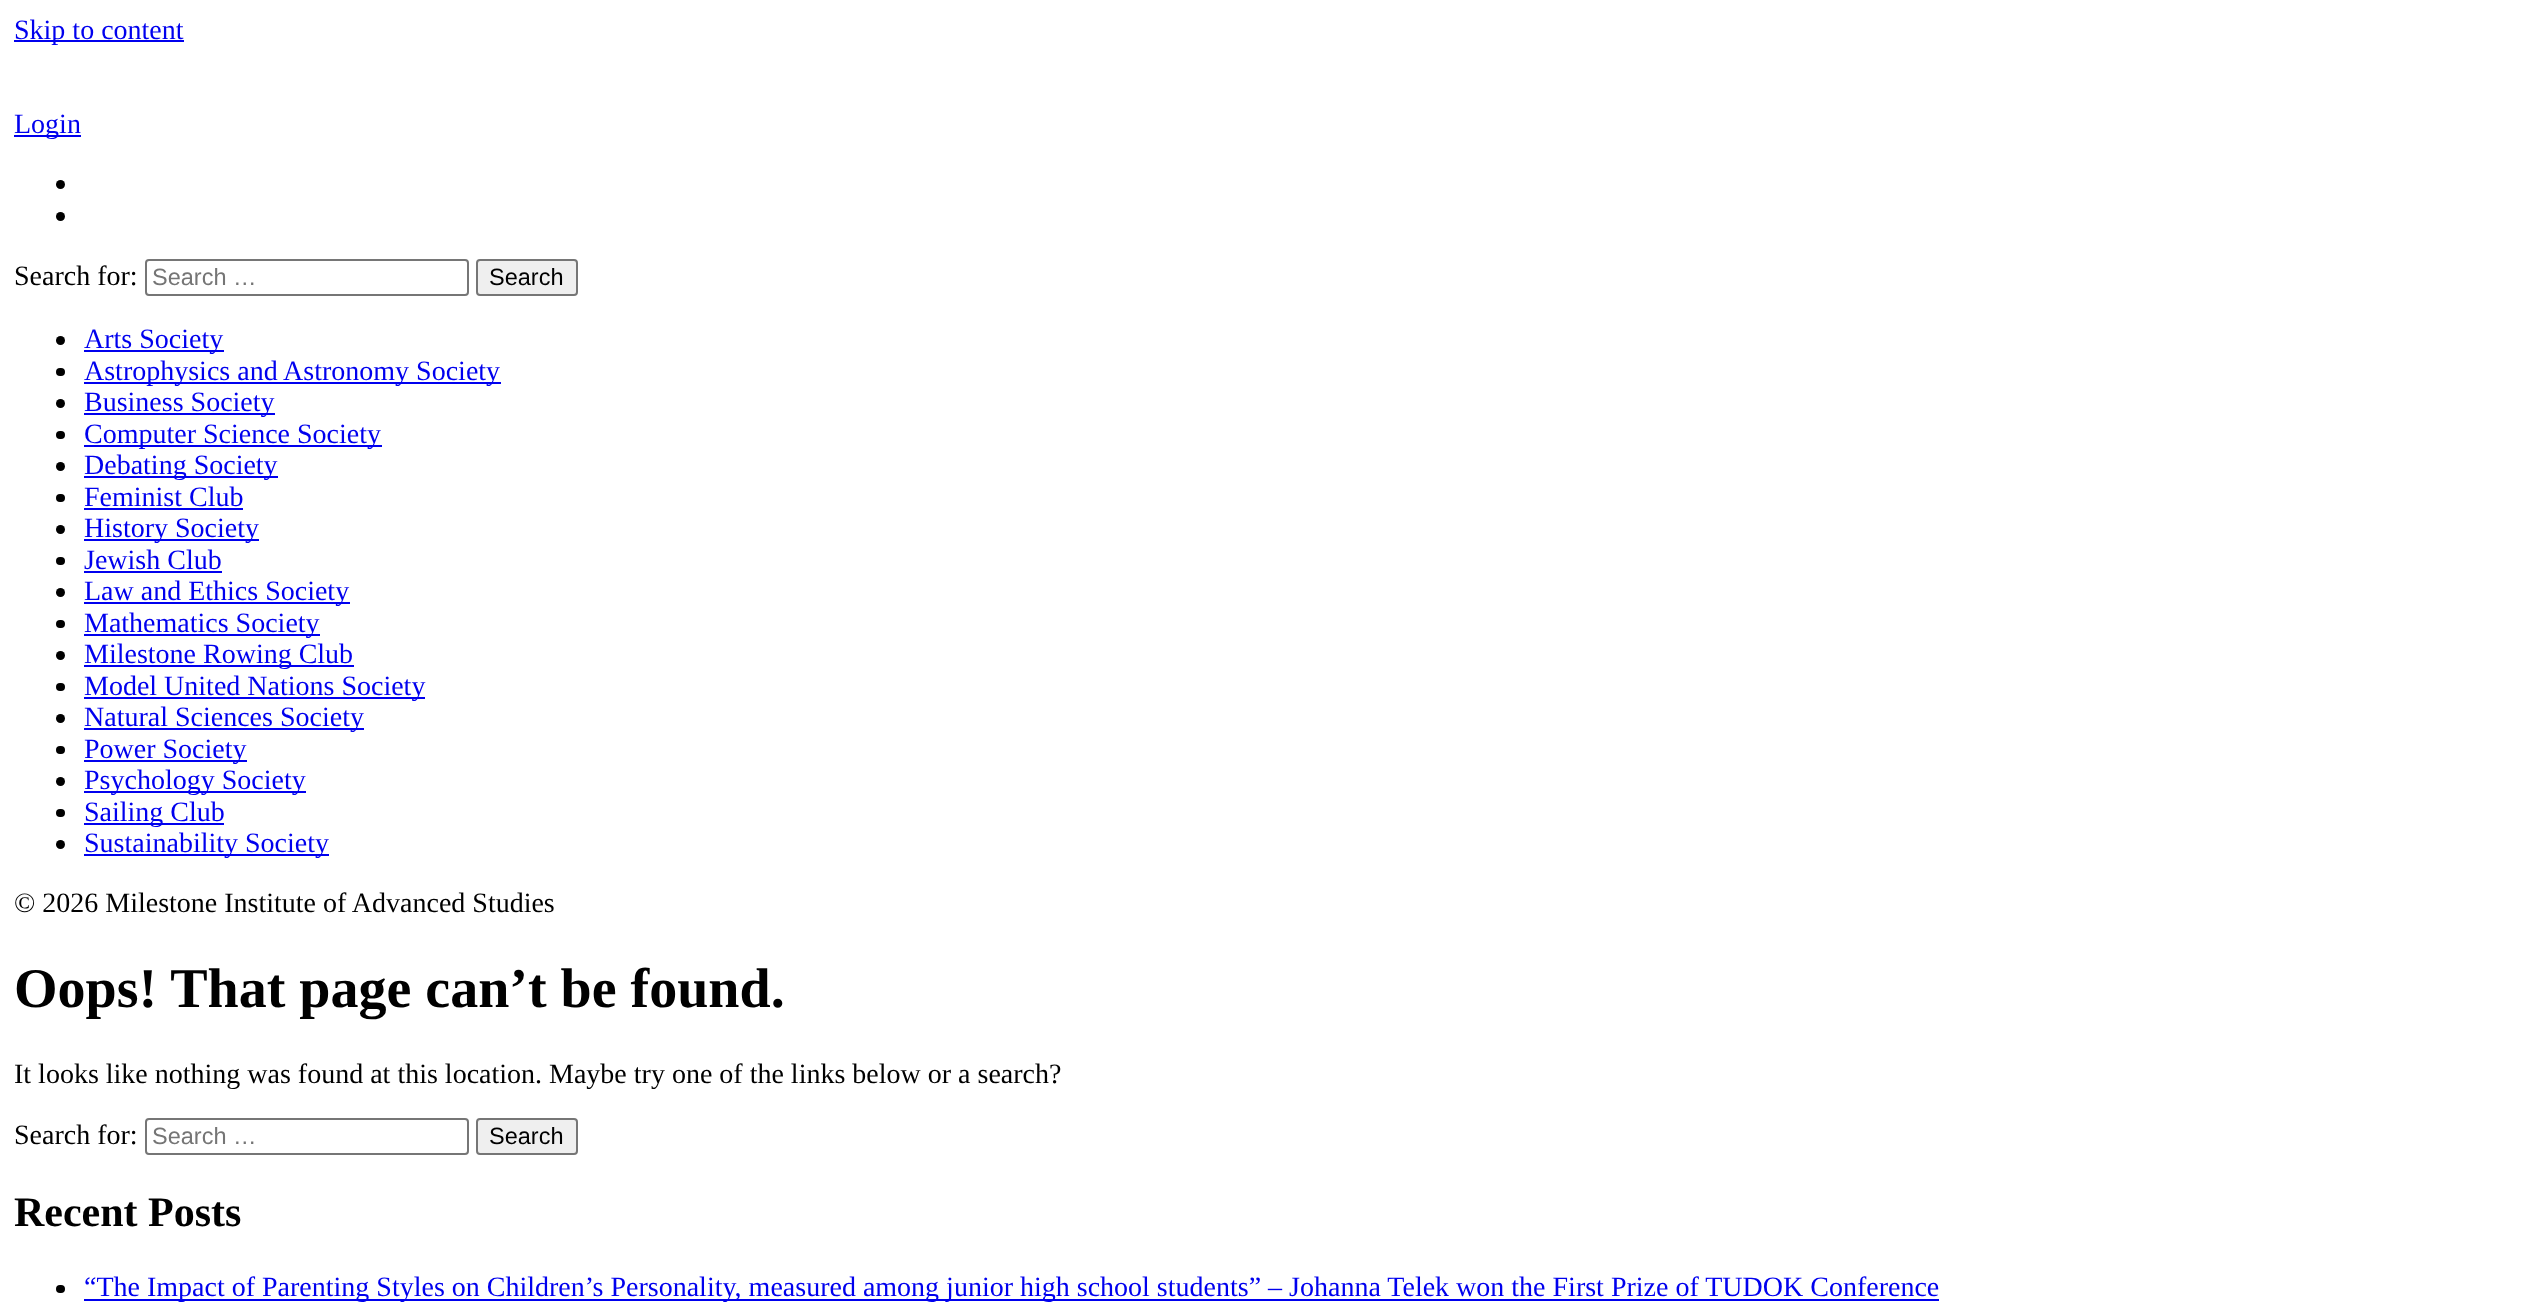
<!DOCTYPE html>
<meta charset="utf-8">
<style>body { margin: 0 } canvas { display: block }</style>
<canvas id="canvas" width="2532" height="1303"></canvas>
<script type="module">
  const canvas = document.getElementById("canvas");
  const ctx = canvas.getContext("2d");
  ctx.miterLimit = 4;
  ctx.fontKerning = "normal";

  ctx.fillStyle = "#ffffff";
  ctx.fillRect(0, 0, 2532, 1303);
  ctx.fillStyle = "#0000ee";
  ctx.fillRect(14, 40, 170, 2);
  ctx.font = "28px Liberation Serif";
  ctx.fillText("Skip to content", 14, 39);
  ctx.fillRect(14, 135, 67, 2);
  ctx.fillText("Login", 14, 133);
  ctx.fillStyle = "#000000";
  ctx.beginPath();
  ctx.arc(60.5, 184.5, 4.5, 0, Math.PI * 2);
  ctx.fill();
  ctx.beginPath();
  ctx.arc(60.5, 216.5, 4.5, 0, Math.PI * 2);
  ctx.fill();
  ctx.fillText("Search for:", 14, 285);
  ctx.beginPath();
  ctx.roundRect(146, 260, 322, 35, 3);
  ctx.strokeStyle = "#767676";
  ctx.lineWidth = 2;
  ctx.stroke();
  ctx.font = "23.5px Liberation Sans";
  ctx.fillStyle = "#757575";
  ctx.fillText("Search …", 152, 285);
  ctx.fillStyle = "#efefef";
  ctx.beginPath();
  ctx.roundRect(477, 260, 100, 35, 3);
  ctx.fill();
  ctx.stroke();
  ctx.fillStyle = "#000000";
  ctx.fillText("Search", 489, 285);
  ctx.beginPath();
  ctx.arc(60.5, 340.5, 4.5, 0, Math.PI * 2);
  ctx.fill();
  ctx.fillStyle = "#0000ee";
  ctx.fillRect(84, 350, 140, 2);
  ctx.font = "28px Liberation Serif";
  ctx.fillText("Arts Society", 84, 348);
  ctx.fillStyle = "#000000";
  ctx.beginPath();
  ctx.roundRect(56, 368, 9, 8, 4);
  ctx.fill();
  ctx.fillStyle = "#0000ee";
  ctx.fillRect(84, 382, 417, 2);
  ctx.fillText("Astrophysics and Astronomy Society", 84, 380);
  ctx.fillStyle = "#000000";
  ctx.beginPath();
  ctx.arc(60.5, 403.5, 4.5, 0, Math.PI * 2);
  ctx.fill();
  ctx.fillStyle = "#0000ee";
  ctx.fillRect(84, 413, 191, 2);
  ctx.fillText("Business Society", 84, 411);
  ctx.fillStyle = "#000000";
  ctx.beginPath();
  ctx.roundRect(56, 431, 9, 8, 4);
  ctx.fill();
  ctx.fillStyle = "#0000ee";
  ctx.fillRect(84, 445, 298, 2);
  ctx.fillText("Computer Science Society", 84, 443);
  ctx.fillStyle = "#000000";
  ctx.beginPath();
  ctx.arc(60.5, 466.5, 4.5, 0, Math.PI * 2);
  ctx.fill();
  ctx.fillStyle = "#0000ee";
  ctx.fillRect(84, 476, 194, 2);
  ctx.fillText("Debating Society", 84, 474);
  ctx.fillStyle = "#000000";
  ctx.beginPath();
  ctx.roundRect(56, 494, 9, 8, 4);
  ctx.fill();
  ctx.fillStyle = "#0000ee";
  ctx.fillText("Feminist Club", 84, 506);
  ctx.fillRect(84, 508, 159, 2);
  ctx.fillStyle = "#000000";
  ctx.beginPath();
  ctx.arc(60.5, 529.5, 4.5, 0, Math.PI * 2);
  ctx.fill();
  ctx.fillStyle = "#0000ee";
  ctx.fillRect(84, 539, 175, 2);
  ctx.fillText("History Society", 84, 537);
  ctx.fillStyle = "#000000";
  ctx.beginPath();
  ctx.roundRect(56, 557, 9, 8, 4);
  ctx.fill();
  ctx.fillStyle = "#0000ee";
  ctx.fillText("Jewish Club", 84, 569);
  ctx.fillRect(84, 571, 138, 2);
  ctx.fillStyle = "#000000";
  ctx.beginPath();
  ctx.arc(60.5, 592.5, 4.5, 0, Math.PI * 2);
  ctx.fill();
  ctx.fillStyle = "#0000ee";
  ctx.fillRect(84, 602, 266, 2);
  ctx.fillText("Law and Ethics Society", 84, 600);
  ctx.fillStyle = "#000000";
  ctx.beginPath();
  ctx.roundRect(56, 620, 9, 8, 4);
  ctx.fill();
  ctx.fillStyle = "#0000ee";
  ctx.fillRect(84, 634, 236, 2);
  ctx.fillText("Mathematics Society", 84, 632);
  ctx.fillStyle = "#000000";
  ctx.beginPath();
  ctx.arc(60.5, 655.5, 4.5, 0, Math.PI * 2);
  ctx.fill();
  ctx.fillStyle = "#0000ee";
  ctx.fillRect(84, 665, 270, 2);
  ctx.fillText("Milestone Rowing Club", 84, 663);
  ctx.fillStyle = "#000000";
  ctx.beginPath();
  ctx.roundRect(56, 683, 9, 8, 4);
  ctx.fill();
  ctx.fillStyle = "#0000ee";
  ctx.fillRect(84, 697, 341, 2);
  ctx.fillText("Model United Nations Society", 84, 695);
  ctx.fillStyle = "#000000";
  ctx.beginPath();
  ctx.arc(60.5, 718.5, 4.5, 0, Math.PI * 2);
  ctx.fill();
  ctx.fillStyle = "#0000ee";
  ctx.fillRect(84, 728, 280, 2);
  ctx.fillText("Natural Sciences Society", 84, 726);
  ctx.fillStyle = "#000000";
  ctx.beginPath();
  ctx.roundRect(56, 746, 9, 8, 4);
  ctx.fill();
  ctx.fillStyle = "#0000ee";
  ctx.fillRect(84, 760, 163, 2);
  ctx.fillText("Power Society", 84, 758);
  ctx.fillStyle = "#000000";
  ctx.beginPath();
  ctx.arc(60.5, 781.5, 4.5, 0, Math.PI * 2);
  ctx.fill();
  ctx.fillStyle = "#0000ee";
  ctx.fillRect(84, 791, 222, 2);
  ctx.fillText("Psychology Society", 84, 789);
  ctx.fillStyle = "#000000";
  ctx.beginPath();
  ctx.roundRect(56, 809, 9, 8, 4);
  ctx.fill();
  ctx.fillStyle = "#0000ee";
  ctx.fillRect(84, 823, 140, 2);
  ctx.fillText("Sailing Club", 84, 821);
  ctx.fillStyle = "#000000";
  ctx.beginPath();
  ctx.arc(60.5, 844.5, 4.5, 0, Math.PI * 2);
  ctx.fill();
  ctx.fillStyle = "#0000ee";
  ctx.fillRect(84, 854, 245, 2);
  ctx.fillText("Sustainability Society", 84, 852);
  ctx.fillStyle = "#000000";
  ctx.fillText("© 2026 Milestone Institute of Advanced Studies", 14, 912);
  ctx.font = "bold 56px Liberation Serif";
  ctx.fillText("Oops! That page can’t be found.", 14, 1007);
  ctx.font = "28px Liberation Serif";
  ctx.fillText("It looks like nothing was found at this location. Maybe try one of the links below or a search?", 14, 1083);
  ctx.fillText("Search for:", 14, 1144);
  ctx.beginPath();
  ctx.roundRect(146, 1119, 322, 35, 3);
  ctx.stroke();
  ctx.font = "23.5px Liberation Sans";
  ctx.fillStyle = "#757575";
  ctx.fillText("Search …", 152, 1144);
  ctx.fillStyle = "#efefef";
  ctx.beginPath();
  ctx.roundRect(477, 1119, 100, 35, 3);
  ctx.fill();
  ctx.stroke();
  ctx.fillStyle = "#000000";
  ctx.fillText("Search", 489, 1144);
  ctx.font = "bold 42px Liberation Serif";
  ctx.fillText("Recent Posts", 14, 1226);
  ctx.beginPath();
  ctx.roundRect(56, 1285, 9, 8, 4);
  ctx.fill();
  ctx.fillStyle = "#0000ee";
  ctx.fillRect(84, 1299, 1855, 2);
  ctx.font = "28px Liberation Serif";
  ctx.fillText("“The Impact of Parenting Styles on Children’s Personality, measured among junior high school students” – Johanna Telek won the First Prize of TUDOK Conference", 84, 1296);
</script>
